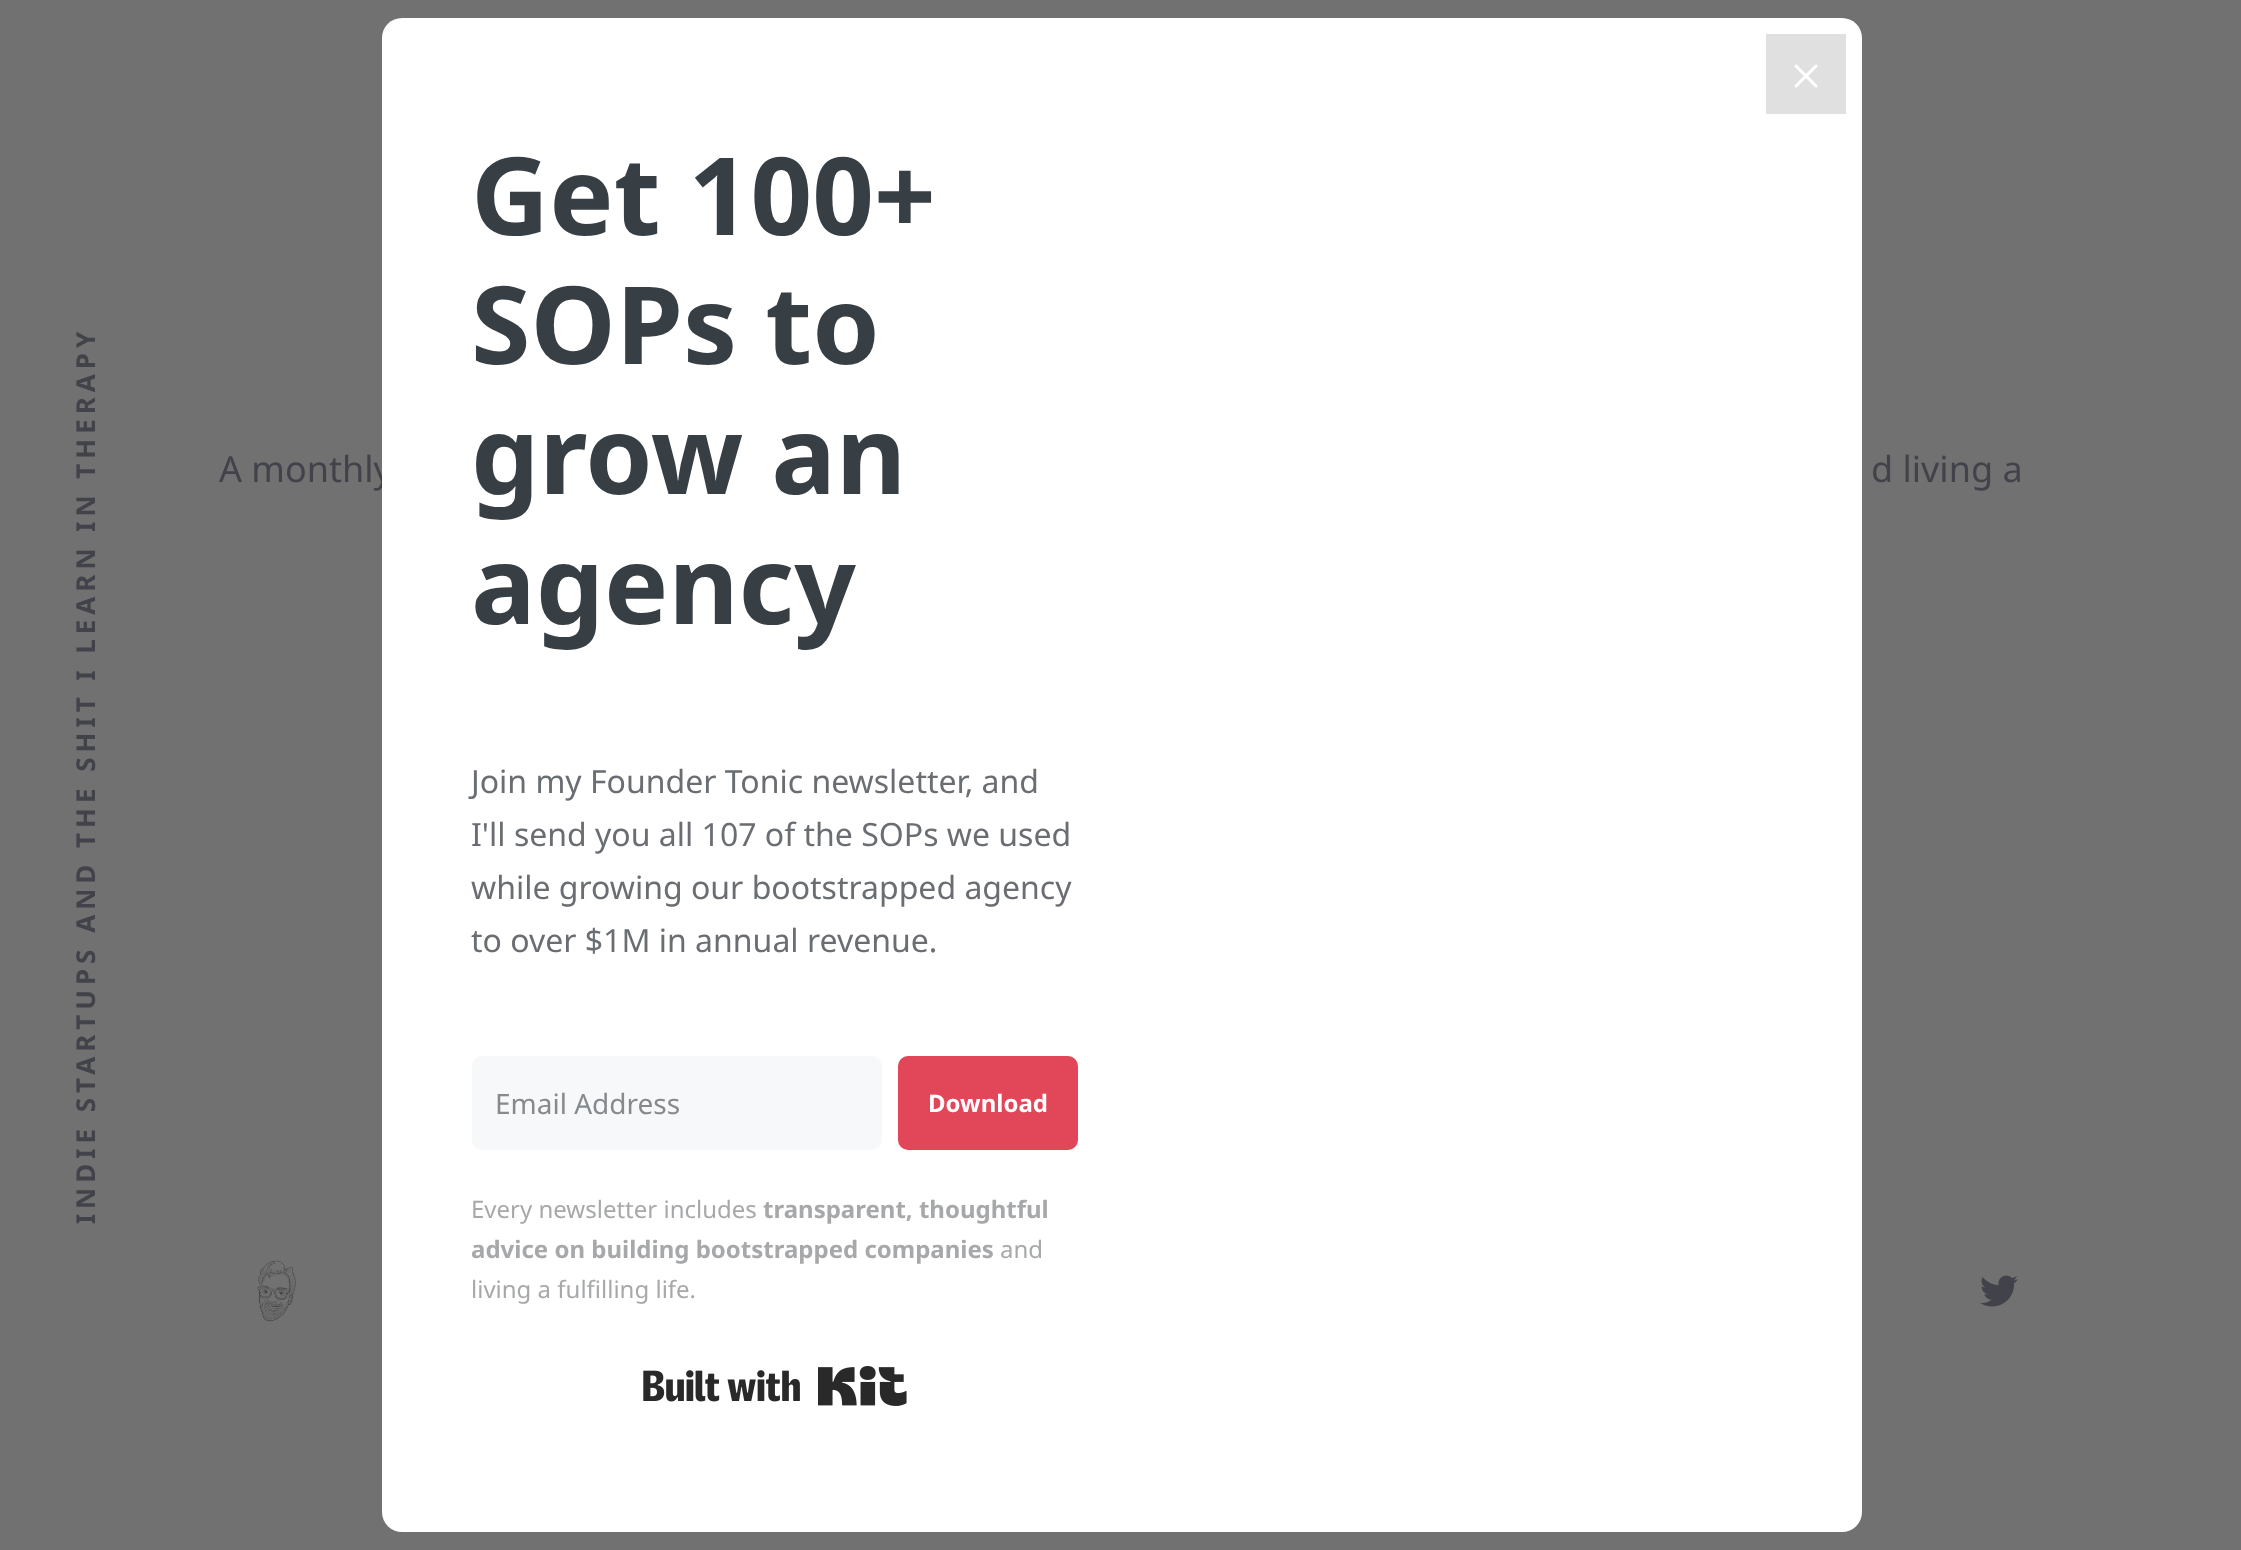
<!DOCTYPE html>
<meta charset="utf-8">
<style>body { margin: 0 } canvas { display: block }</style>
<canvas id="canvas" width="2241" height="1550"></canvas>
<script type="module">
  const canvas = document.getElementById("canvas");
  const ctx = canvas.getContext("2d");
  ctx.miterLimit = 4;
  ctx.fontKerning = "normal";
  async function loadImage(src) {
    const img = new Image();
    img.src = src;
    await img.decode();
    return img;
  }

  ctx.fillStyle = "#717171";
  ctx.fillRect(0, 0, 2241, 1550);
  ctx.font = "36px Noto Sans";
  ctx.fillStyle = "#42434a";
  ctx.fillText("A monthly", 219, 482);
  ctx.fillStyle = "#ffffff";
  ctx.beginPath();
  ctx.roundRect(382, 18, 1480, 1514, 20);
  ctx.fill();
  ctx.fillStyle = "#e0e0e0";
  ctx.fillRect(1766, 34, 80, 80);
  ctx.drawImage(await loadImage("img1.png"), 1794, 64, 24, 24);
  ctx.font = "bold 108px Noto Sans";
  ctx.fillStyle = "#373f45";
  ctx.fillText("Get 100+", 471, 235);
  ctx.fillText("SOPs to", 471, 364);
  ctx.fillText("grow an", 471, 494);
  ctx.fillText("agency", 471, 624);
  ctx.font = "32px Noto Sans";
  ctx.fillStyle = "#6a6e72";
  ctx.fillText("Join my Founder Tonic newsletter, and", 471, 793);
  ctx.fillText("I'll send you all 107 of the SOPs we used", 471, 846);
  ctx.fillText("while growing our bootstrapped agency", 471, 899);
  ctx.fillText("to over $1M in annual revenue.", 471, 952);
  ctx.fillStyle = "#f6f8fa";
  ctx.beginPath();
  ctx.roundRect(472, 1056, 410, 94, 10);
  ctx.fill();
  ctx.font = "28px Noto Sans";
  ctx.fillStyle = "#868a8d";
  ctx.fillText("Email Address", 495, 1114);
  ctx.fillStyle = "#e14659";
  ctx.beginPath();
  ctx.roundRect(898, 1056, 180, 94, 10);
  ctx.fill();
  ctx.font = "bold 24px Noto Sans";
  ctx.fillStyle = "#ffffff";
  ctx.fillText("Download", 928, 1112);
  ctx.font = "24px Noto Sans";
  ctx.fillStyle = "#a6a8aa";
  ctx.fillText("Every newsletter includes", 471, 1218);
  ctx.font = "bold 24px Noto Sans";
  ctx.fillText("transparent, thoughtful", 763, 1218);
  ctx.fillText("advice on building bootstrapped companies", 471, 1258);
  ctx.font = "24px Noto Sans";
  ctx.fillText("and", 1000, 1258);
  ctx.fillText("living a fulfilling life.", 471, 1298);
  ctx.drawImage(await loadImage("img2.png"), 643, 1366, 264, 40);
  ctx.letterSpacing = "5px";
  ctx.font = "bold 26px Noto Sans";
  ctx.fillStyle = "#42434a";
  ctx.save();
  ctx.translate(95, 1224);
  ctx.rotate(-90 * Math.PI / 180);
  ctx.fillText("INDIE STARTUPS AND THE SHIT I LEARN IN THERAPY", 0, 0);
  ctx.restore();
  ctx.letterSpacing = "0px";
  ctx.font = "36px Noto Sans";
  ctx.fillText("d living a", 1871, 482);
  ctx.drawImage(await loadImage("img3.png"), 257, 1260, 39, 62);
  ctx.drawImage(await loadImage("img4.png"), 1980, 1275, 38, 32);
</script>
